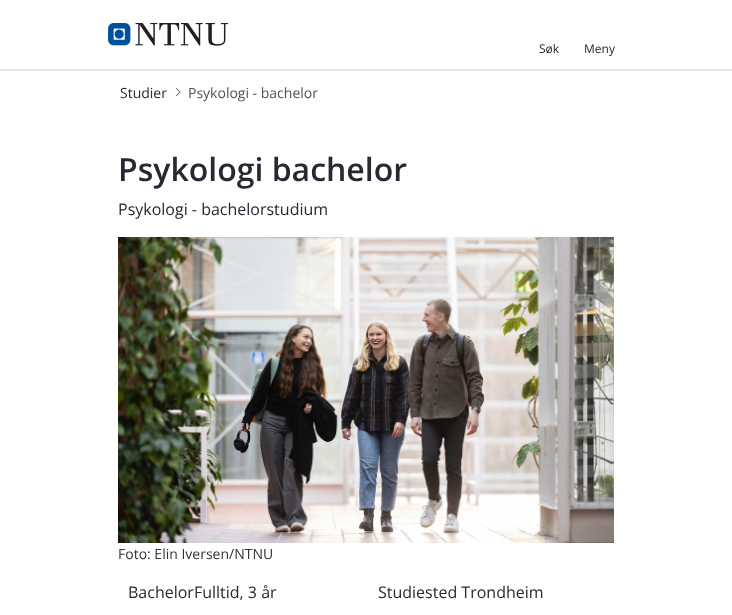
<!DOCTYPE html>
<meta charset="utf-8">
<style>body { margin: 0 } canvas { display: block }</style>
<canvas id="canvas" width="732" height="615"></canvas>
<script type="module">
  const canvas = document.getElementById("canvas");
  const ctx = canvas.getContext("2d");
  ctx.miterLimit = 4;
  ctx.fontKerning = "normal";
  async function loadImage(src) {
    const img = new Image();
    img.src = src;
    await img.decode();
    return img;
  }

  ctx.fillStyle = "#ffffff";
  ctx.fillRect(0, 0, 732, 615);
  ctx.fillStyle = "#e4e4e4";
  ctx.fillRect(0, 70, 732, 1);
  ctx.fillStyle = "#e7e7ed";
  ctx.fillRect(0, 69, 732, 1);
  ctx.drawImage(await loadImage("img1.png"), 108, 23, 120, 23);
  ctx.font = "12px Open Sans";
  ctx.fillStyle = "#272833";
  ctx.fillText("Søk", 539, 53);
  ctx.fillText("Meny", 584, 53);
  ctx.font = "14px Open Sans";
  ctx.fillText("Studier", 120, 98);
  ctx.drawImage(await loadImage("img2.png"), 175, 88, 6, 8);
  ctx.fillStyle = "#525252";
  ctx.fillText("Psykologi - bachelor", 188, 98);
  ctx.font = "600 32px Open Sans";
  ctx.fillStyle = "#272833";
  ctx.fillText("Psykologi bachelor", 118, 181);
  ctx.font = "16px Open Sans";
  ctx.fillText("Psykologi - bachelorstudium", 118, 215);
  ctx.drawImage(await loadImage("img3.png"), 118, 237, 496, 306);
  ctx.font = "14px Open Sans";
  ctx.fillStyle = "#333333";
  ctx.fillText("Foto: Elin Iversen/NTNU", 118, 559);
  ctx.font = "16px Open Sans";
  ctx.fillStyle = "#272833";
  ctx.fillText("BachelorFulltid, 3 år", 128, 598);
  ctx.fillText("Studiested Trondheim", 378, 598);
</script>
